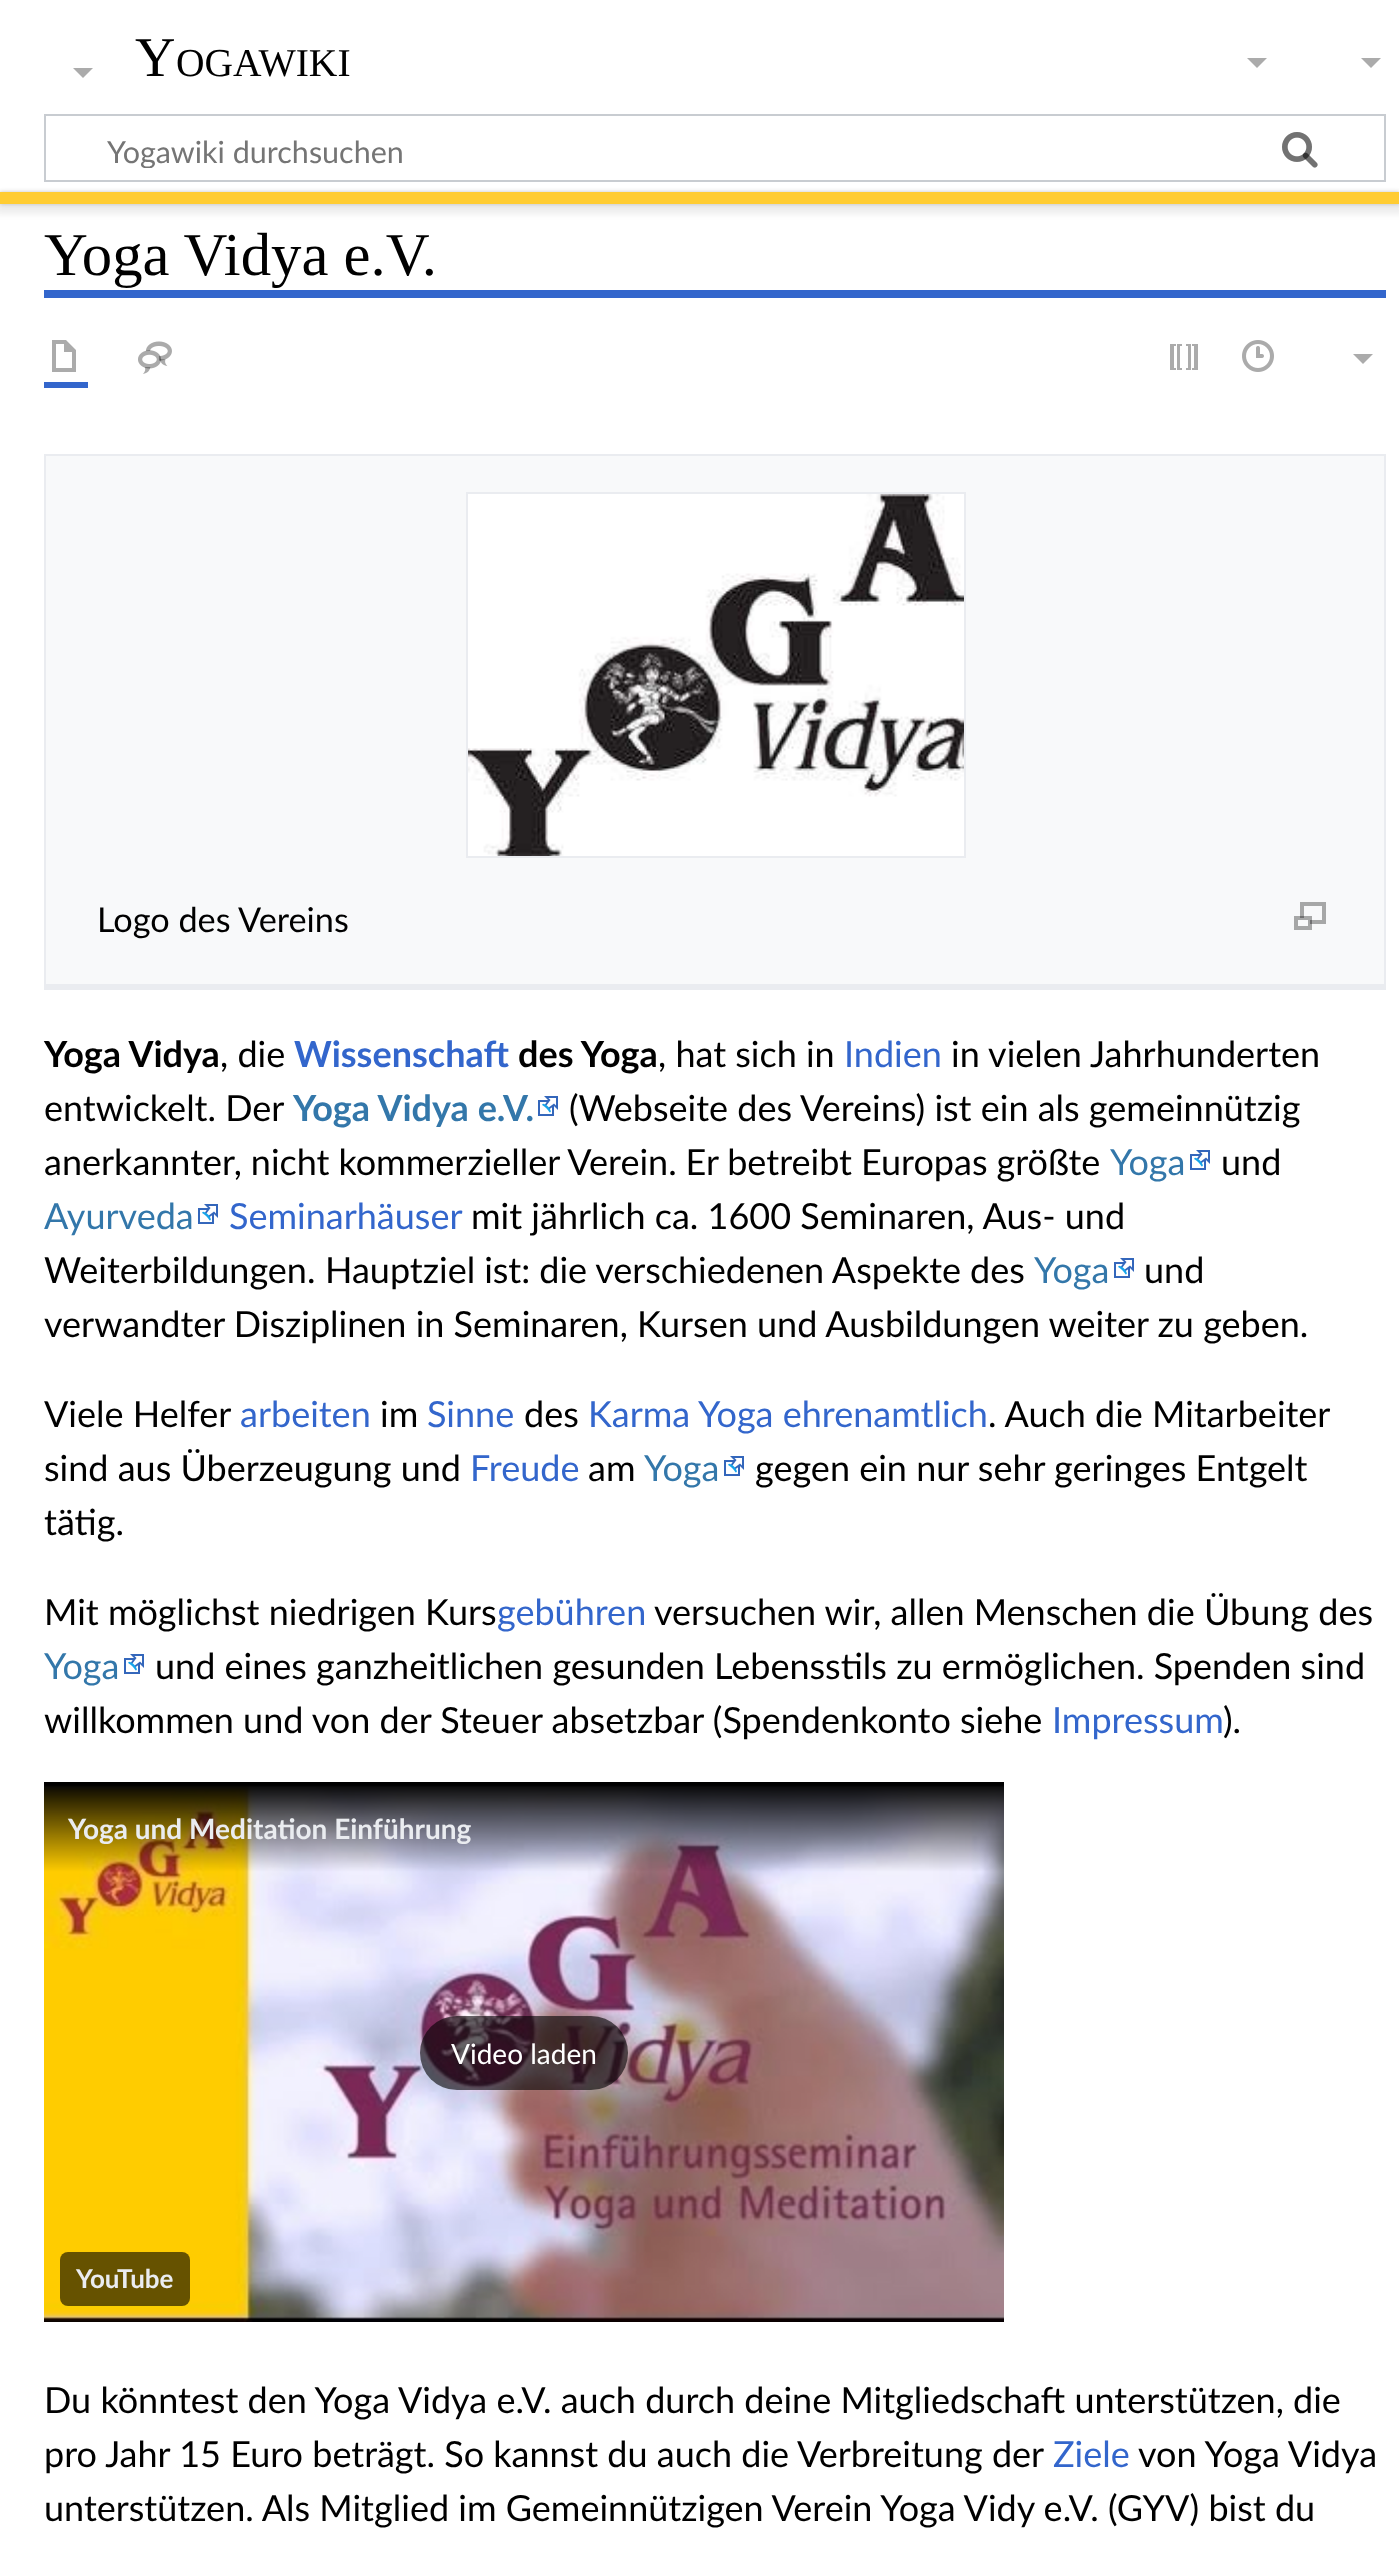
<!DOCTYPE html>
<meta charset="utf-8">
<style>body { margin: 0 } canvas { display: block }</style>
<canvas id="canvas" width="1399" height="2559"></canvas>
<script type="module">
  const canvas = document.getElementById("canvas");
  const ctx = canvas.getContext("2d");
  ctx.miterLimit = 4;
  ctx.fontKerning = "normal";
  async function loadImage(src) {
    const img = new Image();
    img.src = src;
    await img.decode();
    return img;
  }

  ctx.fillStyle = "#ffffff";
  ctx.fillRect(0, 0, 1399, 2559);
  ctx.font = "56px Liberation Serif";
  ctx.fillStyle = "#000000";
  ctx.fillText("Y", 135, 76);
  ctx.font = "39.5px Liberation Serif";
  ctx.fillText("OGAWIKI", 176, 76);
  ctx.fillStyle = "#ababab";
  ctx.beginPath();
  ctx.moveTo(1381, 58);
  ctx.lineTo(1371, 68);
  ctx.lineTo(1361, 58);
  ctx.closePath();
  ctx.fill();
  ctx.strokeStyle = "#c8ccd1";
  ctx.lineWidth = 2;
  ctx.strokeRect(45, 115, 1340, 66);
  ctx.drawImage(await loadImage("img1.png"), 1282, 132, 36, 36);
  ctx.save();
  ctx.beginPath();
  ctx.rect(106, 132, 1134, 36);
  ctx.clip();
  ctx.font = "30.5px Lato";
  ctx.fillStyle = "#757575";
  ctx.fillText("Yogawiki durchsuchen", 107, 163);
  ctx.restore();
  ctx.drawImage(await loadImage("img2.png"), 1282, 132, 36, 36);
  ctx.fillStyle = "rgba(0, 0, 0, 0.2)";
  ctx.filter = "blur(2px)";
  ctx.beginPath();
  ctx.rect(0, 192, 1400, 12);
  ctx.fill();
  ctx.filter = "none";
  ctx.fillStyle = "rgba(0, 0, 0, 0.07)";
  ctx.filter = "blur(3px)";
  ctx.beginPath();
  ctx.rect(-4, 194, 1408, 20);
  ctx.fill();
  ctx.filter = "none";
  ctx.fillStyle = "#ffcc32";
  ctx.fillRect(0, 192, 1399, 12);
  ctx.fillStyle = "#ababab";
  ctx.beginPath();
  ctx.moveTo(1267, 58);
  ctx.lineTo(1257, 68);
  ctx.lineTo(1247, 58);
  ctx.closePath();
  ctx.fill();
  ctx.beginPath();
  ctx.moveTo(93, 68);
  ctx.lineTo(83, 78);
  ctx.lineTo(73, 68);
  ctx.closePath();
  ctx.fill();
  ctx.fillStyle = "#3366cc";
  ctx.fillRect(44, 290, 1342, 8);
  ctx.font = "60.75px Liberation Serif";
  ctx.fillStyle = "#000000";
  ctx.fillText("Yoga Vidya e.V.", 44, 275);
  ctx.fillStyle = "#3366cc";
  ctx.fillRect(44, 382, 44, 6);
  ctx.fillStyle = "#ababab";
  ctx.beginPath();
  ctx.moveTo(52, 340);
  ctx.lineTo(52, 372);
  ctx.lineTo(76, 372);
  ctx.lineTo(76, 350);
  ctx.lineTo(66, 340);
  ctx.closePath();
  ctx.moveTo(56, 344);
  ctx.lineTo(64, 344);
  ctx.lineTo(64, 352);
  ctx.lineTo(72, 352);
  ctx.lineTo(72, 368);
  ctx.lineTo(56, 368);
  ctx.closePath();
  ctx.fill();
  ctx.drawImage(await loadImage("img3.png"), 138, 341, 34, 33);
  ctx.drawImage(await loadImage("img4.png"), 1170, 344, 28, 26);
  ctx.drawImage(await loadImage("img5.png"), 1242, 340, 32, 32);
  ctx.beginPath();
  ctx.moveTo(1373, 354);
  ctx.lineTo(1363, 364);
  ctx.lineTo(1353, 354);
  ctx.closePath();
  ctx.fill();
  ctx.fillStyle = "#f8f9fa";
  ctx.fillRect(46, 456, 1338, 528);
  ctx.fillStyle = "#eaecf0";
  ctx.fillRect(44, 454, 1342, 2);
  ctx.fillRect(44, 984, 1342, 6);
  ctx.fillRect(1384, 454, 2, 536);
  ctx.fillRect(44, 454, 2, 536);
  ctx.font = "34.25px Lato";
  ctx.fillStyle = "#000000";
  ctx.fillText("Logo des Vereins", 97, 932);
  ctx.strokeStyle = "#eaecf0";
  ctx.strokeRect(467, 493, 498, 364);
  ctx.drawImage(await loadImage("img6.png"), 468, 494, 496, 362);
  ctx.drawImage(await loadImage("img7.png"), 1294, 902, 32, 28);
  ctx.font = "bold 36px Lato";
  ctx.fillText("Yoga Vidya", 44, 1067);
  ctx.font = "36px Lato";
  ctx.fillText(", die", 220, 1067);
  ctx.font = "bold 36px Lato";
  ctx.fillStyle = "#3366cc";
  ctx.fillText("Wissenschaft", 294, 1067);
  ctx.fillStyle = "#000000";
  ctx.fillText("des Yoga", 518, 1067);
  ctx.font = "36px Lato";
  ctx.fillText(", hat sich in", 658, 1067);
  ctx.fillStyle = "#3366cc";
  ctx.fillText("Indien", 844, 1067);
  ctx.fillStyle = "#000000";
  ctx.fillText("in vielen Jahrhunderten", 951, 1067);
  ctx.fillText("entwickelt. Der", 44, 1121);
  ctx.font = "bold 36px Lato";
  ctx.fillStyle = "#3377aa";
  ctx.fillText("Yoga Vidya e.V.", 293, 1121);
  ctx.drawImage(await loadImage("img8.png"), 538, 1096, 20, 20);
  ctx.font = "36px Lato";
  ctx.fillStyle = "#000000";
  ctx.fillText("(Webseite des Vereins) ist ein als gemeinnützig", 569, 1121);
  ctx.wordSpacing = "-0.25px";
  ctx.fillText("anerkannter, nicht kommerzieller Verein. Er betreibt Europas größte", 44, 1175);
  ctx.wordSpacing = "0px";
  ctx.fillStyle = "#3377aa";
  ctx.fillText("Yoga", 1110, 1175);
  ctx.drawImage(await loadImage("img8.png"), 1190, 1150, 20, 20);
  ctx.fillStyle = "#000000";
  ctx.fillText("und", 1221, 1175);
  ctx.fillStyle = "#3377aa";
  ctx.fillText("Ayurveda", 44, 1229);
  ctx.drawImage(await loadImage("img8.png"), 198, 1204, 20, 20);
  ctx.fillStyle = "#3366cc";
  ctx.fillText("Seminarhäuser", 229, 1229);
  ctx.fillStyle = "#000000";
  ctx.fillText("mit jährlich ca. 1600 Seminaren, Aus- und", 471, 1229);
  ctx.fillText("Weiterbildungen.", 44, 1283);
  ctx.wordSpacing = "-0.25px";
  ctx.fillText("Hauptziel ist: die verschiedenen Aspekte des", 325, 1283);
  ctx.wordSpacing = "0px";
  ctx.fillStyle = "#3377aa";
  ctx.fillText("Yoga", 1034, 1283);
  ctx.drawImage(await loadImage("img8.png"), 1114, 1258, 20, 20);
  ctx.fillStyle = "#000000";
  ctx.fillText("und", 1144, 1283);
  ctx.fillText("verwandter Disziplinen in Seminaren, Kursen und Ausbildungen weiter zu geben.", 44, 1337);
  ctx.fillText("Viele Helfer", 44, 1427);
  ctx.fillStyle = "#3366cc";
  ctx.fillText("arbeiten", 240, 1427);
  ctx.fillStyle = "#000000";
  ctx.fillText("im", 380, 1427);
  ctx.fillStyle = "#3366cc";
  ctx.fillText("Sinne", 427, 1427);
  ctx.fillStyle = "#000000";
  ctx.fillText("des", 524, 1427);
  ctx.fillStyle = "#3366cc";
  ctx.fillText("Karma Yoga ehrenamtlich", 588, 1427);
  ctx.fillStyle = "#000000";
  ctx.fillText(". Auch die Mitarbeiter", 988, 1427);
  ctx.fillText("sind aus Überzeugung und", 44, 1481);
  ctx.fillStyle = "#3366cc";
  ctx.fillText("Freude", 470, 1481);
  ctx.fillStyle = "#000000";
  ctx.fillText("am", 588, 1481);
  ctx.fillStyle = "#3377aa";
  ctx.fillText("Yoga", 644, 1481);
  ctx.drawImage(await loadImage("img8.png"), 724, 1456, 20, 20);
  ctx.fillStyle = "#000000";
  ctx.fillText("gegen ein nur sehr geringes Entgelt", 755, 1481);
  ctx.fillText("tätig.", 44, 1535);
  ctx.fillText("Mit möglichst niedrigen Kurs", 44, 1625);
  ctx.fillStyle = "#3366cc";
  ctx.fillText("gebühren", 497, 1625);
  ctx.fillStyle = "#000000";
  ctx.fillText("versuchen wir, allen Menschen die Übung des", 654, 1625);
  ctx.fillStyle = "#3377aa";
  ctx.fillText("Yoga", 44, 1679);
  ctx.drawImage(await loadImage("img8.png"), 124, 1654, 20, 20);
  ctx.fillStyle = "#000000";
  ctx.fillText("und eines ganzheitlichen gesunden Lebensstils zu ermöglichen. Spenden sind", 155, 1679);
  ctx.fillText("willkommen und von der Steuer absetzbar (Spendenkonto siehe", 44, 1733);
  ctx.fillStyle = "#3366cc";
  ctx.fillText("Impressum", 1052, 1733);
  ctx.fillStyle = "#000000";
  ctx.fillText(").", 1223, 1733);
  ctx.drawImage(await loadImage("img9.png"), 44, 1782, 960, 540);
  ctx.font = "bold 28px Lato";
  ctx.fillStyle = "#eaecf0";
  ctx.fillText("Yoga und Meditation Einführung", 68, 1839);
  ctx.fillStyle = "rgba(0, 0, 0, 0.6)";
  ctx.beginPath();
  ctx.roundRect(420, 2016, 208, 74, 37);
  ctx.fill();
  ctx.font = "28px Lato";
  ctx.fillStyle = "#ffffff";
  ctx.fillText("Video laden", 451, 2064);
  ctx.fillStyle = "rgba(0, 0, 0, 0.6)";
  ctx.beginPath();
  ctx.roundRect(60, 2252, 130, 54, 8);
  ctx.fill();
  ctx.font = "bold 26px Lato";
  ctx.fillStyle = "#eaecf0";
  ctx.fillText("YouTube", 76, 2288);
  ctx.font = "36px Lato";
  ctx.fillStyle = "#000000";
  ctx.fillText("Du könntest den Yoga Vidya e.V. auch durch deine Mitgliedschaft unterstützen, die", 44, 2413);
  ctx.fillText("pro Jahr 15 Euro beträgt. So kannst du auch die Verbreitung der", 44, 2467);
  ctx.fillStyle = "#3366cc";
  ctx.fillText("Ziele", 1053, 2467);
  ctx.fillStyle = "#000000";
  ctx.fillText("von Yoga Vidya", 1138, 2467);
  ctx.fillText("unterstützen. Als Mitglied im Gemeinnützigen Verein Yoga Vidy e.V. (GYV) bist du", 44, 2521);
</script>
